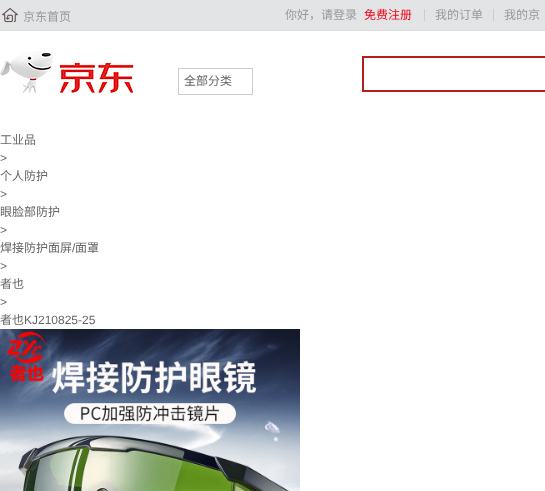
<!DOCTYPE html>
<meta charset="utf-8">
<style>body { margin: 0 } canvas { display: block }</style>
<canvas id="canvas" width="545" height="491"></canvas>
<script type="module">
  const canvas = document.getElementById("canvas");
  const ctx = canvas.getContext("2d");
  ctx.miterLimit = 4;
  ctx.fontKerning = "normal";
  async function loadImage(src) {
    const img = new Image();
    img.src = src;
    await img.decode();
    return img;
  }

  ctx.fillStyle = "#ffffff";
  ctx.fillRect(0, 0, 545, 491);
  ctx.fillStyle = "#e3e4e5";
  ctx.fillRect(0, 0, 545, 30);
  ctx.fillStyle = "#dddddd";
  ctx.fillRect(0, 30, 545, 1);
  ctx.drawImage(await loadImage("img1.png"), 2, 8, 16, 15);
  ctx.font = "12px Noto Sans CJK SC";
  ctx.fillStyle = "#999999";
  ctx.fillText("京东首页", 23, 21);
  ctx.fillText("你好，请登录", 285, 19);
  ctx.fillStyle = "#f30213";
  ctx.fillText("免费注册", 364, 19);
  ctx.fillStyle = "#cccccc";
  ctx.fillRect(424, 9, 1, 12);
  ctx.fillStyle = "#999999";
  ctx.fillText("我的订单", 435, 19);
  ctx.fillStyle = "#cccccc";
  ctx.fillRect(493, 9, 1, 12);
  ctx.fillStyle = "#999999";
  ctx.fillText("我的京", 504, 19);
  ctx.drawImage(await loadImage("img2.png"), 0, 51, 134, 42);
  ctx.strokeStyle = "#cccccc";
  ctx.strokeRect(178.5, 68.5, 74, 26);
  ctx.fillStyle = "#666666";
  ctx.fillText("全部分类", 184, 85);
  ctx.fillStyle = "#b61d1d";
  ctx.fillRect(362, 56, 183, 2);
  ctx.fillRect(362, 90, 183, 2);
  ctx.fillRect(362, 56, 2, 36);
  ctx.fillStyle = "#666666";
  ctx.fillText("工业品", 0, 144);
  ctx.font = "12px Liberation Sans";
  ctx.fillText(">", 0, 162);
  ctx.font = "12px Noto Sans CJK SC";
  ctx.fillText("个人防护", 0, 180);
  ctx.font = "12px Liberation Sans";
  ctx.fillText(">", 0, 198);
  ctx.font = "12px Noto Sans CJK SC";
  ctx.fillText("眼脸部防护", 0, 216);
  ctx.font = "12px Liberation Sans";
  ctx.fillText(">", 0, 234);
  ctx.font = "12px Noto Sans CJK SC";
  ctx.fillText("焊接防护面屏", 0, 252);
  ctx.font = "12px Liberation Sans";
  ctx.fillText("/", 72, 252);
  ctx.font = "12px Noto Sans CJK SC";
  ctx.fillText("面罩", 75, 252);
  ctx.font = "12px Liberation Sans";
  ctx.fillText(">", 0, 270);
  ctx.font = "12px Noto Sans CJK SC";
  ctx.fillText("者也", 0, 288);
  ctx.font = "12px Liberation Sans";
  ctx.fillText(">", 0, 306);
  ctx.font = "12px Noto Sans CJK SC";
  ctx.fillText("者也", 0, 324);
  ctx.font = "12px Liberation Sans";
  ctx.fillText("KJ210825-25", 24, 324);
  ctx.drawImage(await loadImage("img3.png"), 0, 329, 300, 162);
</script>
